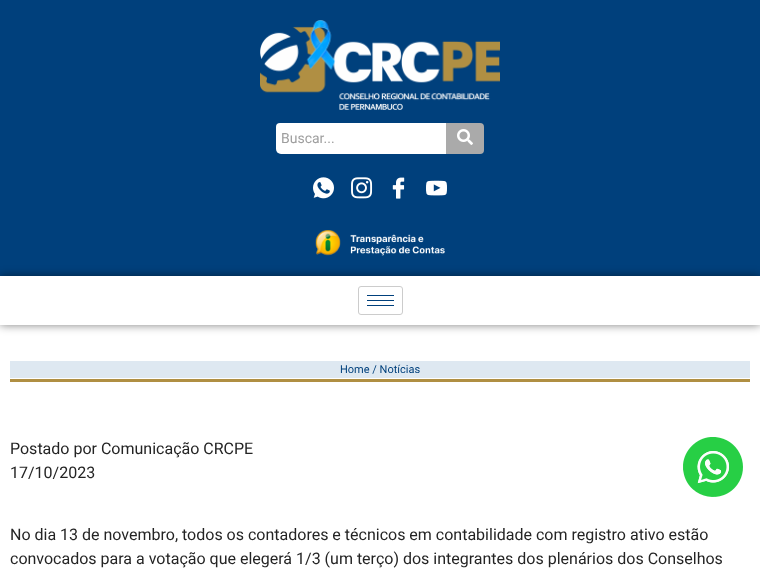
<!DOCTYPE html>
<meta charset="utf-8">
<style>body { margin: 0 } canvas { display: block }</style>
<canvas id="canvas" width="760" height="572"></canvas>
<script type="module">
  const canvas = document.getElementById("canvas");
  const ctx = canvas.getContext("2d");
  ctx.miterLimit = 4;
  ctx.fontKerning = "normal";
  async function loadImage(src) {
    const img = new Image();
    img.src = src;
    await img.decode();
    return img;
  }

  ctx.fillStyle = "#ffffff";
  ctx.fillRect(0, 0, 760, 572);
  ctx.fillStyle = "#00407c";
  ctx.fillRect(0, 0, 760, 276);
  ctx.drawImage(await loadImage("img1.png"), 260, 20, 240, 90);
  ctx.fillStyle = "#ffffff";
  ctx.beginPath();
  ctx.roundRect(276, 123, 170, 31, [4, 0, 0, 5]);
  ctx.fill();
  ctx.font = "14px Roboto";
  ctx.fillStyle = "#9e9e9e";
  ctx.fillText("Buscar...", 281, 143);
  ctx.fillStyle = "#aaaaaa";
  ctx.beginPath();
  ctx.roundRect(446, 123, 38, 31, [0, 4, 4, 0]);
  ctx.fill();
  ctx.drawImage(await loadImage("img2.png"), 457, 129, 16, 16);
  ctx.drawImage(await loadImage("img3.png"), 313, 177, 21, 22);
  ctx.drawImage(await loadImage("img4.png"), 351, 177, 22, 22);
  ctx.drawImage(await loadImage("img5.png"), 392, 177, 13, 22);
  ctx.drawImage(await loadImage("img6.png"), 426, 180, 21, 16);
  ctx.drawImage(await loadImage("img7.png"), 315, 230, 130, 26);
  ctx.save();
  ctx.beginPath();
  ctx.moveTo(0, 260);
  ctx.lineTo(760, 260);
  ctx.lineTo(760, 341);
  ctx.lineTo(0, 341);
  ctx.closePath();
  ctx.moveTo(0, 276);
  ctx.lineTo(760, 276);
  ctx.lineTo(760, 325);
  ctx.lineTo(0, 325);
  ctx.closePath();
  ctx.clip("evenodd");
  ctx.fillStyle = "rgba(0, 0, 0, 0.5)";
  ctx.filter = "blur(5px)";
  ctx.beginPath();
  ctx.rect(0, 276, 760, 49);
  ctx.fill();
  ctx.filter = "none";
  ctx.restore();
  ctx.beginPath();
  ctx.roundRect(358.5, 286.5, 44, 28, 2.5);
  ctx.strokeStyle = "#cccccc";
  ctx.stroke();
  ctx.fillStyle = "#00407c";
  ctx.fillRect(367, 295, 27, 1);
  ctx.fillRect(367, 300, 27, 1);
  ctx.fillRect(367, 305, 27, 1);
  ctx.fillStyle = "#dee8f1";
  ctx.fillRect(10, 361, 740, 17);
  ctx.font = "11px Roboto";
  ctx.fillStyle = "#00407c";
  ctx.fillText("Home / Notícias", 340, 373);
  ctx.fillStyle = "#b08f43";
  ctx.fillRect(10, 379, 740, 3);
  ctx.font = "16px Roboto";
  ctx.fillStyle = "#242424";
  ctx.fillText("Postado por Comunicação CRCPE", 10, 454);
  ctx.fillText("17/10/2023", 10, 478);
  ctx.fillText("No dia 13 de novembro, todos os contadores e técnicos em contabilidade com registro ativo estão", 10, 540);
  ctx.fillText("convocados para a votação que elegerá 1/3 (um terço) dos integrantes dos plenários dos Conselhos", 10, 564);
  ctx.drawImage(await loadImage("img8.png"), 683, 437, 60, 60);
</script>
